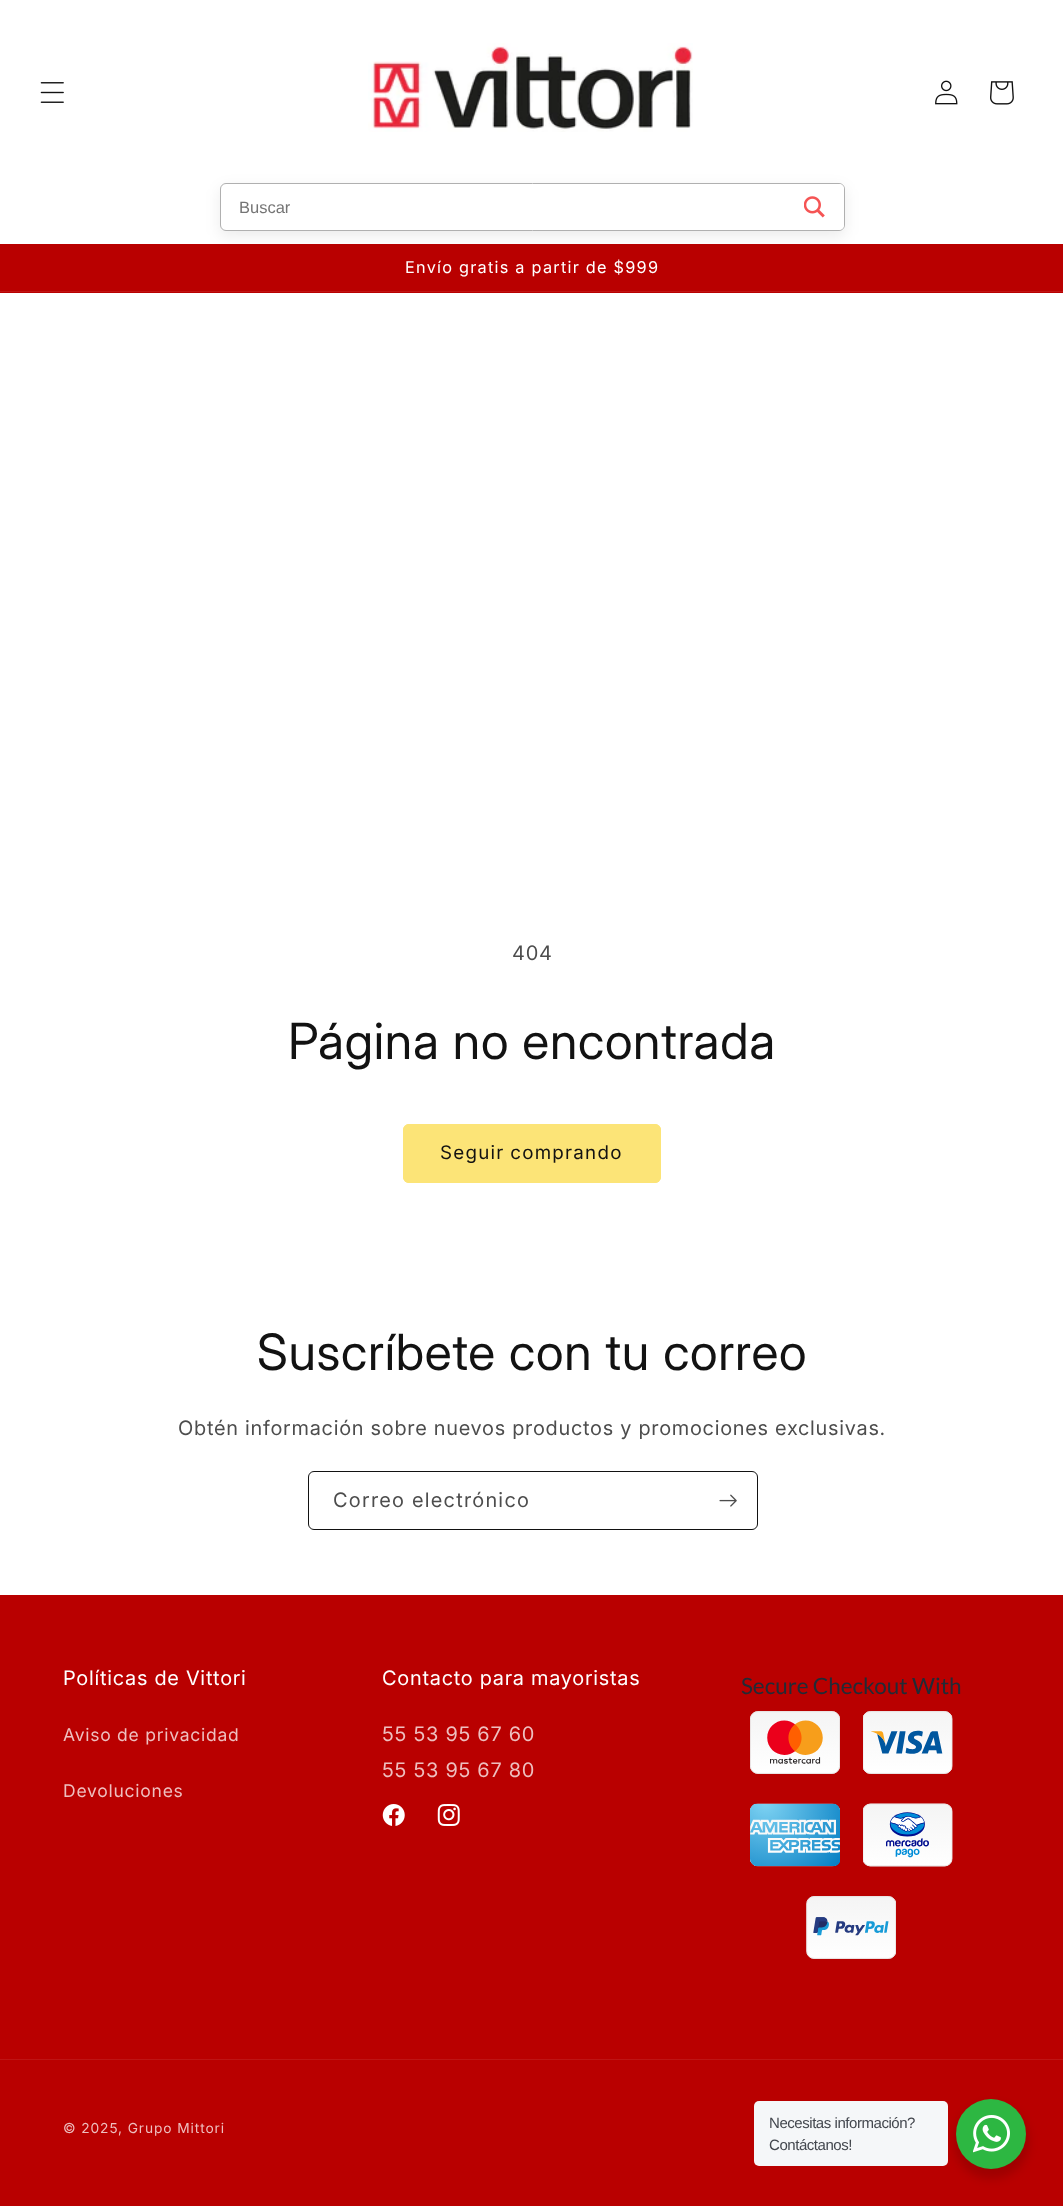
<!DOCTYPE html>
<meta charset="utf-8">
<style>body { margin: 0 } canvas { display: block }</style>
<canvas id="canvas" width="1063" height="2206"></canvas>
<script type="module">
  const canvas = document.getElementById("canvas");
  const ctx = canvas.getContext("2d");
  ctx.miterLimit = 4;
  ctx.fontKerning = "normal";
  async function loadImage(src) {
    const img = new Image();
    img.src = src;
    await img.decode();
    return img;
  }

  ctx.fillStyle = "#ffffff";
  ctx.fillRect(0, 0, 1063, 2206);
  ctx.drawImage(await loadImage("img1.png"), 40, 82, 24, 21);
  ctx.drawImage(await loadImage("img2.png"), 368, 43, 325, 89);
  ctx.drawImage(await loadImage("img3.png"), 935, 80, 23, 25);
  ctx.drawImage(await loadImage("img4.png"), 990, 81, 24, 24);
  ctx.fillStyle = "#b90000";
  ctx.fillRect(0, 244, 1063, 49);
  ctx.fillStyle = "rgba(0, 0, 0, 0.08)";
  ctx.filter = "blur(7.5px)";
  ctx.beginPath();
  ctx.roundRect(220, 188, 625, 48, 6);
  ctx.fill();
  ctx.filter = "none";
  ctx.fillStyle = "#ffffff";
  ctx.beginPath();
  ctx.roundRect(220.5, 183.5, 624, 47, 5.5);
  ctx.fill();
  ctx.strokeStyle = "#b0b0b0";
  ctx.stroke();
  ctx.font = "16.5px Liberation Sans";
  ctx.fillStyle = "#757575";
  ctx.fillText("Buscar", 239, 213);
  ctx.fillStyle = "#ffffff";
  ctx.beginPath();
  ctx.roundRect(785, 184, 59, 46, [0, 5, 5, 0]);
  ctx.fill();
  ctx.drawImage(await loadImage("img5.png"), 804, 196, 21, 22);
  ctx.fillStyle = "#bf1414";
  ctx.fillRect(0, 291, 1063, 1);
  ctx.letterSpacing = "1.25px";
  ctx.font = "16.25px Inter";
  ctx.fillStyle = "#ffffff";
  ctx.fillText("Envío gratis a partir de $999", 405, 273);
  ctx.letterSpacing = "0.75px";
  ctx.font = "20px Inter";
  ctx.fillStyle = "#4d4d4d";
  ctx.fillText("404", 512, 960);
  ctx.font = "50px 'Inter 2'";
  ctx.fillStyle = "#121212";
  ctx.fillText("Página no encontrada", 288, 1059);
  ctx.fillStyle = "#fce477";
  ctx.beginPath();
  ctx.roundRect(403, 1124, 258, 59, 6);
  ctx.fill();
  ctx.beginPath();
  ctx.roundRect(403.5, 1124.5, 257, 58, 5.5);
  ctx.strokeStyle = "#fce477";
  ctx.stroke();
  ctx.letterSpacing = "1.25px";
  ctx.wordSpacing = "-1px";
  ctx.font = "18.75px Inter";
  ctx.fillStyle = "#121212";
  ctx.fillText("Seguir comprando", 440, 1159);
  ctx.letterSpacing = "0.75px";
  ctx.wordSpacing = "0px";
  ctx.font = "50px 'Inter 2'";
  ctx.fillText("Suscríbete con tu correo", 257, 1370);
  ctx.font = "20px 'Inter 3'";
  ctx.fillStyle = "#4d4d4d";
  ctx.fillText("Obtén información sobre nuevos productos y promociones exclusivas.", 178, 1435);
  ctx.beginPath();
  ctx.roundRect(308.5, 1471.5, 449, 58, 5.5);
  ctx.strokeStyle = "#121212";
  ctx.stroke();
  ctx.letterSpacing = "1.25px";
  ctx.fillText("Correo electrónico", 333, 1507);
  ctx.drawImage(await loadImage("img6.png"), 719, 1494, 18, 13);
  ctx.fillStyle = "#b90000";
  ctx.fillRect(0, 1595, 1063, 611);
  ctx.letterSpacing = "0.75px";
  ctx.fillStyle = "#ffffff";
  ctx.fillText("Políticas de Vittori", 63, 1685);
  ctx.font = "17.5px Inter";
  ctx.fillStyle = "#eebfbf";
  ctx.fillText("Aviso de privacidad", 63, 1741);
  ctx.fillText("Devoluciones", 63, 1797);
  ctx.font = "20px 'Inter 3'";
  ctx.fillStyle = "#ffffff";
  ctx.fillText("Contacto para mayoristas", 382, 1685);
  ctx.fillStyle = "#eebfbf";
  ctx.fillText("55 53 95 67 60", 382, 1741);
  ctx.fillText("55 53 95 67 80", 382, 1777);
  ctx.drawImage(await loadImage("img7.png"), 382, 1804, 23, 22);
  ctx.drawImage(await loadImage("img8.png"), 437, 1804, 23, 22);
  ctx.drawImage(await loadImage("img9.png"), 741, 1677, 220, 282);
  ctx.fillStyle = "#bf1414";
  ctx.fillRect(0, 2059, 1063, 1);
  ctx.letterSpacing = "0.9px";
  ctx.font = "13.75px Inter";
  ctx.fillStyle = "#eebfbf";
  ctx.fillText("© 2025, Grupo Mittori", 63, 2133);
  ctx.fillStyle = "rgba(0, 0, 0, 0.14)";
  ctx.filter = "blur(5px)";
  ctx.beginPath();
  ctx.roundRect(954, 2104, 75, 75, 37.5);
  ctx.fill();
  ctx.filter = "none";
  ctx.fillStyle = "#f5f7f9";
  ctx.beginPath();
  ctx.roundRect(754, 2101, 194, 65, 5);
  ctx.fill();
  ctx.letterSpacing = "-0.45px";
  ctx.font = "15px Liberation Sans";
  ctx.fillStyle = "#43474e";
  ctx.fillText("Necesitas información?", 769, 2128);
  ctx.fillText("Contáctanos!", 769, 2150);
  ctx.fillStyle = "#2db742";
  ctx.beginPath();
  ctx.arc(991, 2134, 35, 0, Math.PI * 2);
  ctx.fill();
  ctx.drawImage(await loadImage("img10.png"), 973, 2115, 37, 38);
</script>
